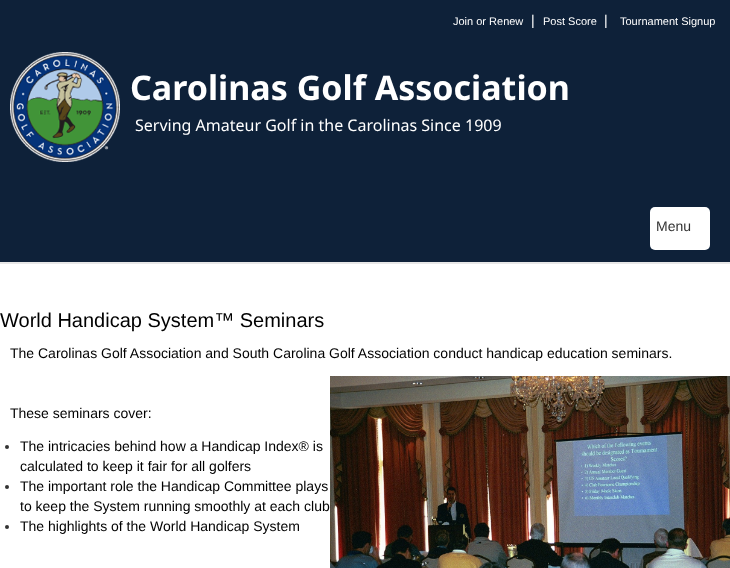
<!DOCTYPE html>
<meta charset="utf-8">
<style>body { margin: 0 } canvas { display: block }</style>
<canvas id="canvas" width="730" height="568"></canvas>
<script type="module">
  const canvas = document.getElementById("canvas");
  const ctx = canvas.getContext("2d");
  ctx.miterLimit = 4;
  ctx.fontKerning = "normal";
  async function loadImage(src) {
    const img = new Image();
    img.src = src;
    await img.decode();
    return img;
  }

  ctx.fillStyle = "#ffffff";
  ctx.fillRect(0, 0, 730, 568);
  ctx.fillStyle = "#0e2139";
  ctx.fillRect(0, 0, 730, 262);
  ctx.font = "11px Liberation Sans";
  ctx.fillStyle = "#ffffff";
  ctx.fillText("Join or Renew", 453, 25);
  ctx.font = "14px Liberation Sans";
  ctx.fillText("|", 531, 25);
  ctx.font = "11px Liberation Sans";
  ctx.fillText("Post Score", 543, 25);
  ctx.font = "14px Liberation Sans";
  ctx.fillText("|", 604, 25);
  ctx.font = "11px Liberation Sans";
  ctx.fillText("Tournament Signup", 620, 25);
  ctx.drawImage(await loadImage("img1.png"), 10, 52, 110, 110);
  ctx.font = "bold 34px Noto Sans";
  ctx.fillText("Carolinas Golf Association", 130, 100);
  ctx.font = "16px Noto Sans";
  ctx.fillText("Serving Amateur Golf in the Carolinas Since 1909", 135, 131);
  ctx.beginPath();
  ctx.roundRect(650, 207, 60, 43, 5);
  ctx.fill();
  ctx.font = "14px Liberation Sans";
  ctx.fillStyle = "#333333";
  ctx.fillText("Menu", 656, 231);
  ctx.fillStyle = "#e7e7e7";
  ctx.fillRect(0, 262, 730, 2);
  ctx.font = "20px Liberation Sans";
  ctx.fillStyle = "#000000";
  ctx.fillText("World Handicap System™ Seminars", 0, 327);
  ctx.font = "14px Liberation Sans";
  ctx.fillText("The Carolinas Golf Association and South Carolina Golf Association conduct handicap education seminars.", 10, 358);
  ctx.fillText("These seminars cover:", 10, 418);
  ctx.drawImage(await loadImage("img2.png"), 330, 376, 400, 192);
  ctx.fillStyle = "#333333";
  ctx.beginPath();
  ctx.arc(7, 447, 2, 0, Math.PI * 2);
  ctx.fill();
  ctx.fillStyle = "#000000";
  ctx.fillText("The intricacies behind how a Handicap Index® is", 20, 451);
  ctx.fillText("calculated to keep it fair for all golfers", 20, 471);
  ctx.fillStyle = "#333333";
  ctx.beginPath();
  ctx.arc(7, 487, 2, 0, Math.PI * 2);
  ctx.fill();
  ctx.fillStyle = "#000000";
  ctx.fillText("The important role the Handicap Committee plays", 20, 491);
  ctx.fillText("to keep the System running smoothly at each club", 20, 511);
  ctx.fillStyle = "#333333";
  ctx.beginPath();
  ctx.arc(7, 527, 2, 0, Math.PI * 2);
  ctx.fill();
  ctx.fillStyle = "#000000";
  ctx.fillText("The highlights of the World Handicap System", 20, 531);
</script>
